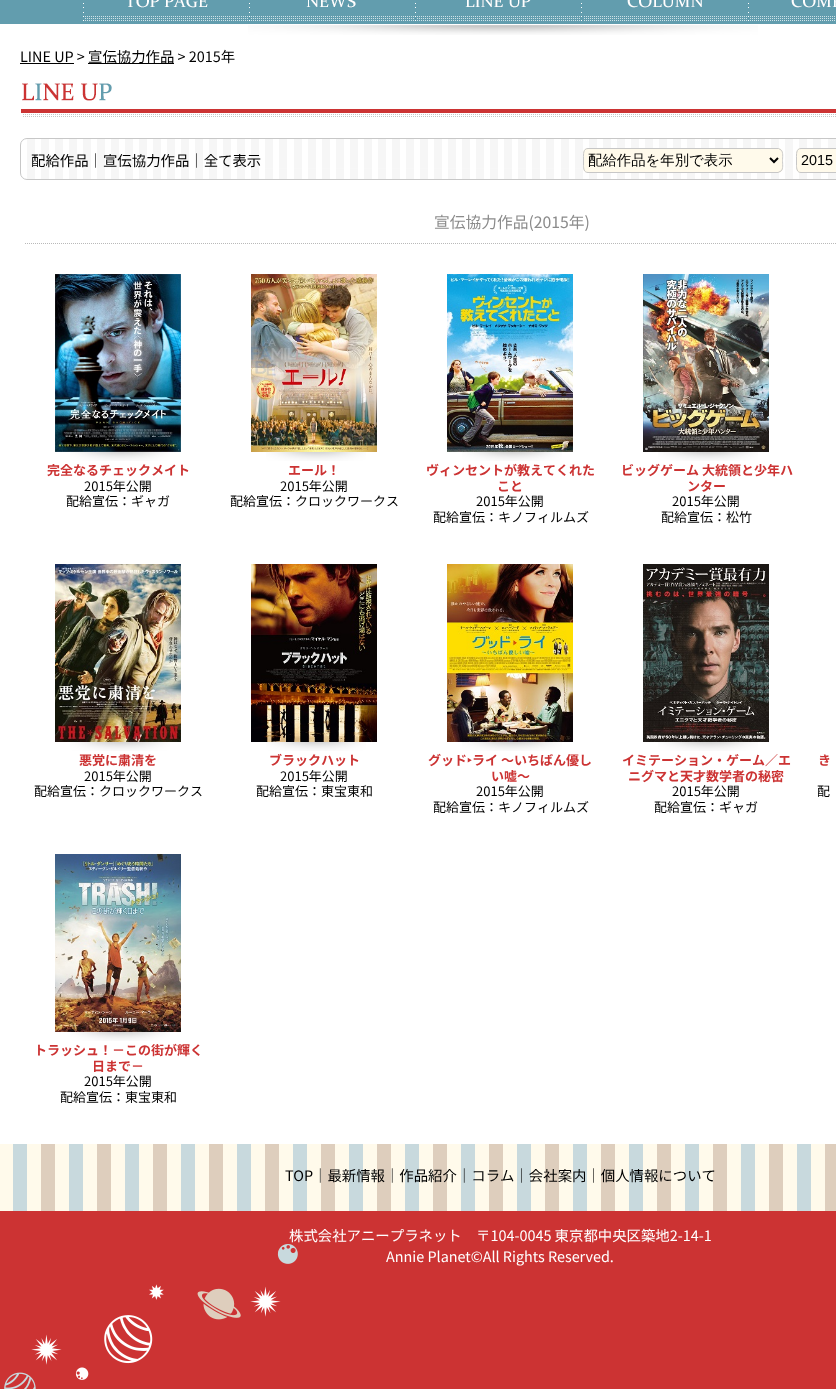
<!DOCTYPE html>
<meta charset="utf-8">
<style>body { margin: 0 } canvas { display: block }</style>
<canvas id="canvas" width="836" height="1389"></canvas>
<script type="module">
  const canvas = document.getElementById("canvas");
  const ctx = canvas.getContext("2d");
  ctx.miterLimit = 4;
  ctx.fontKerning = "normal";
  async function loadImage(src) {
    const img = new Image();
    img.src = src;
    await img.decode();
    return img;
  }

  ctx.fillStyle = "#629dae";
  ctx.fillRect(0, 0, 836, 1389);
  ctx.fillStyle = "#ffffff";
  ctx.fillRect(0, 24, 836, 1120);
  ctx.drawImage(await loadImage("img1.png"), 83, 0, 167, 21);
  ctx.drawImage(await loadImage("img2.png"), 251, 0, 165, 21);
  ctx.drawImage(await loadImage("img3.png"), 417, 0, 165, 21);
  ctx.drawImage(await loadImage("img4.png"), 584, 0, 165, 21);
  ctx.drawImage(await loadImage("img5.png"), 750, 0, 86, 21);
  ctx.drawImage(await loadImage("img6.png"), 248, 25, 510, 10);
  ctx.font = "14.4px Noto Sans JP";
  ctx.fillStyle = "#000000";
  ctx.fillText("LINE UP >", 20, 62);
  ctx.fillRect(20, 63, 54, 1);
  ctx.fillRect(88, 63, 86, 1);
  ctx.fillText("宣伝協力作品 > 2015年", 88, 62);
  ctx.drawImage(await loadImage("img7.png"), 21, 83, 815, 34);
  ctx.drawImage(await loadImage("img8.png"), 27, 139, 809, 40);
  ctx.beginPath();
  ctx.roundRect(20.5, 138.5, 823, 41, 6.5);
  ctx.strokeStyle = "#c7c7c7";
  ctx.stroke();
  ctx.fillText("配給作品｜宣伝協力作品｜全て表示", 31, 166);
  ctx.fillStyle = "#fffaeb";
  ctx.beginPath();
  ctx.roundRect(583, 148, 200, 25, 5);
  ctx.fill();
  ctx.beginPath();
  ctx.moveTo(781, 150);
  ctx.bezierCurveTo(783.5, 152, 782.5, 157.5, 782.5, 160.5);
  ctx.bezierCurveTo(782.5, 163.5, 783.5, 169, 781, 171);
  ctx.strokeStyle = "#cccccc";
  ctx.stroke();
  ctx.beginPath();
  ctx.moveTo(781, 171);
  ctx.lineTo(778, 172.5);
  ctx.lineTo(588, 172.5);
  ctx.bezierCurveTo(584, 172.5, 583.5, 168.5, 583.5, 165.5);
  ctx.lineTo(583.5, 158);
  ctx.bezierCurveTo(583.5, 154.5, 583, 148.5, 588, 148.5);
  ctx.lineTo(778.5, 148.5);
  ctx.lineTo(781, 150);
  ctx.strokeStyle = "#c7c7c7";
  ctx.stroke();
  ctx.beginPath();
  ctx.moveTo(770, 158);
  ctx.lineTo(774, 162);
  ctx.lineTo(778, 158);
  ctx.strokeStyle = "#000000";
  ctx.lineWidth = 2;
  ctx.stroke();
  ctx.font = "500 14.4px WenQuanYi Zen Hei";
  ctx.fillStyle = "#000000";
  ctx.fillText("配給作品を年別で表示", 588, 165);
  ctx.fillStyle = "#fffaeb";
  ctx.beginPath();
  ctx.roundRect(796, 148, 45, 25, 5);
  ctx.fill();
  ctx.beginPath();
  ctx.moveTo(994, 171);
  ctx.lineTo(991, 172.5);
  ctx.lineTo(801, 172.5);
  ctx.bezierCurveTo(797, 172.5, 796.5, 168.5, 796.5, 165.5);
  ctx.lineTo(796.5, 158);
  ctx.bezierCurveTo(796.5, 154.5, 796, 148.5, 801, 148.5);
  ctx.lineTo(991.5, 148.5);
  ctx.lineTo(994, 150);
  ctx.strokeStyle = "#c7c7c7";
  ctx.lineWidth = 1;
  ctx.stroke();
  ctx.font = "14.4px Liberation Sans";
  ctx.fillStyle = "#000000";
  ctx.fillText("2015", 801, 165);
  ctx.beginPath();
  ctx.moveTo(25, 243.5);
  ctx.lineTo(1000, 243.5);
  ctx.strokeStyle = "#b9b9b9";
  ctx.setLineDash([1, 1]);
  ctx.stroke();
  ctx.font = "15.75px Noto Sans JP";
  ctx.fillStyle = "#8b8b8b";
  ctx.fillText("宣伝協力作品(2015年)", 434, 228);
  ctx.drawImage(await loadImage("img9.png"), 70, 452, 100, 9);
  ctx.drawImage(await loadImage("img10.png"), 55, 274, 126, 178);
  ctx.font = "bold 13px Noto Sans JP";
  ctx.fillStyle = "#cc3333";
  ctx.fillText("完全なるチェックメイト", 47, 475);
  ctx.font = "13px Noto Sans JP";
  ctx.fillStyle = "#000000";
  ctx.fillText("2015年公開", 84, 491);
  ctx.fillText("配給宣伝：ギャガ", 66, 506);
  ctx.drawImage(await loadImage("img9.png"), 266, 452, 100, 9);
  ctx.drawImage(await loadImage("img11.png"), 251, 274, 126, 178);
  ctx.font = "bold 13px Noto Sans JP";
  ctx.fillStyle = "#cc3333";
  ctx.fillText("エール！", 288, 475);
  ctx.font = "13px Noto Sans JP";
  ctx.fillStyle = "#000000";
  ctx.fillText("2015年公開", 280, 491);
  ctx.fillText("配給宣伝：クロックワークス", 230, 506);
  ctx.drawImage(await loadImage("img9.png"), 462, 452, 100, 9);
  ctx.drawImage(await loadImage("img12.png"), 447, 274, 126, 178);
  ctx.font = "bold 13px Noto Sans JP";
  ctx.fillStyle = "#cc3333";
  ctx.fillText("ヴィンセントが教えてくれた", 426, 475);
  ctx.fillText("こと", 497, 491);
  ctx.font = "13px Noto Sans JP";
  ctx.fillStyle = "#000000";
  ctx.fillText("2015年公開", 476, 506);
  ctx.fillText("配給宣伝：キノフィルムズ", 433, 522);
  ctx.drawImage(await loadImage("img9.png"), 658, 452, 100, 9);
  ctx.drawImage(await loadImage("img13.png"), 643, 274, 126, 178);
  ctx.font = "bold 13px Noto Sans JP";
  ctx.fillStyle = "#cc3333";
  ctx.fillText("ビッグゲーム 大統領と少年ハ", 621, 475);
  ctx.fillText("ンター", 687, 491);
  ctx.font = "13px Noto Sans JP";
  ctx.fillStyle = "#000000";
  ctx.fillText("2015年公開", 672, 506);
  ctx.fillText("配給宣伝：松竹", 661, 522);
  ctx.drawImage(await loadImage("img9.png"), 70, 742, 100, 9);
  ctx.drawImage(await loadImage("img14.png"), 55, 564, 126, 178);
  ctx.font = "bold 13px Noto Sans JP";
  ctx.fillStyle = "#cc3333";
  ctx.fillText("悪党に粛清を", 79, 765);
  ctx.font = "13px Noto Sans JP";
  ctx.fillStyle = "#000000";
  ctx.fillText("2015年公開", 84, 781);
  ctx.fillText("配給宣伝：クロックワークス", 34, 796);
  ctx.drawImage(await loadImage("img9.png"), 266, 742, 100, 9);
  ctx.drawImage(await loadImage("img15.png"), 251, 564, 126, 178);
  ctx.font = "bold 13px Noto Sans JP";
  ctx.fillStyle = "#cc3333";
  ctx.fillText("ブラックハット", 269, 765);
  ctx.font = "13px Noto Sans JP";
  ctx.fillStyle = "#000000";
  ctx.fillText("2015年公開", 280, 781);
  ctx.fillText("配給宣伝：東宝東和", 256, 796);
  ctx.drawImage(await loadImage("img9.png"), 462, 742, 100, 9);
  ctx.drawImage(await loadImage("img16.png"), 447, 564, 126, 178);
  ctx.font = "bold 13px Noto Sans JP";
  ctx.fillStyle = "#cc3333";
  ctx.fillText("グッド", 428, 765);
  ctx.font = "bold 13px Noto Sans";
  ctx.fillText("‣", 467, 765);
  ctx.font = "bold 13px Noto Sans JP";
  ctx.fillText("ライ ～いちばん優し", 472, 765);
  ctx.fillText("い嘘～", 491, 781);
  ctx.font = "13px Noto Sans JP";
  ctx.fillStyle = "#000000";
  ctx.fillText("2015年公開", 476, 796);
  ctx.fillText("配給宣伝：キノフィルムズ", 433, 812);
  ctx.drawImage(await loadImage("img9.png"), 658, 742, 100, 9);
  ctx.drawImage(await loadImage("img17.png"), 643, 564, 126, 178);
  ctx.font = "bold 13px Noto Sans JP";
  ctx.fillStyle = "#cc3333";
  ctx.fillText("イミテーション・ゲーム／エ", 622, 765);
  ctx.fillText("ニグマと天才数学者の秘密", 628, 781);
  ctx.font = "13px Noto Sans JP";
  ctx.fillStyle = "#000000";
  ctx.fillText("2015年公開", 672, 796);
  ctx.fillText("配給宣伝：ギャガ", 654, 812);
  ctx.font = "bold 13px Noto Sans JP";
  ctx.fillStyle = "#cc3333";
  ctx.fillText("き", 818, 765);
  ctx.font = "13px Noto Sans JP";
  ctx.fillStyle = "#000000";
  ctx.fillText("配", 817, 796);
  ctx.drawImage(await loadImage("img9.png"), 70, 1032, 100, 9);
  ctx.drawImage(await loadImage("img18.png"), 55, 854, 126, 178);
  ctx.font = "bold 13px Noto Sans JP";
  ctx.fillStyle = "#cc3333";
  ctx.fillText("トラッシュ！－この街が輝く", 34, 1055);
  ctx.fillText("日まで－", 92, 1071);
  ctx.font = "13px Noto Sans JP";
  ctx.fillStyle = "#000000";
  ctx.fillText("2015年公開", 84, 1086);
  ctx.fillText("配給宣伝：東宝東和", 60, 1102);
  ctx.drawImage(await loadImage("img19.png"), 0, 1144, 836, 245);
  ctx.font = "14.4px Noto Sans JP";
  ctx.fillText("TOP｜最新情報｜作品紹介｜コラム｜会社案内｜個人情報について", 285, 1181);
  ctx.drawImage(await loadImage("img20.png"), 4, 1244, 294, 145);
  ctx.fillStyle = "#ffffff";
  ctx.fillText("株式会社アニープラネット　〒104-0045 東京都中央区築地2-14-1", 289, 1241);
  ctx.fillText("Annie Planet©All Rights Reserved.", 386, 1262);
</script>
